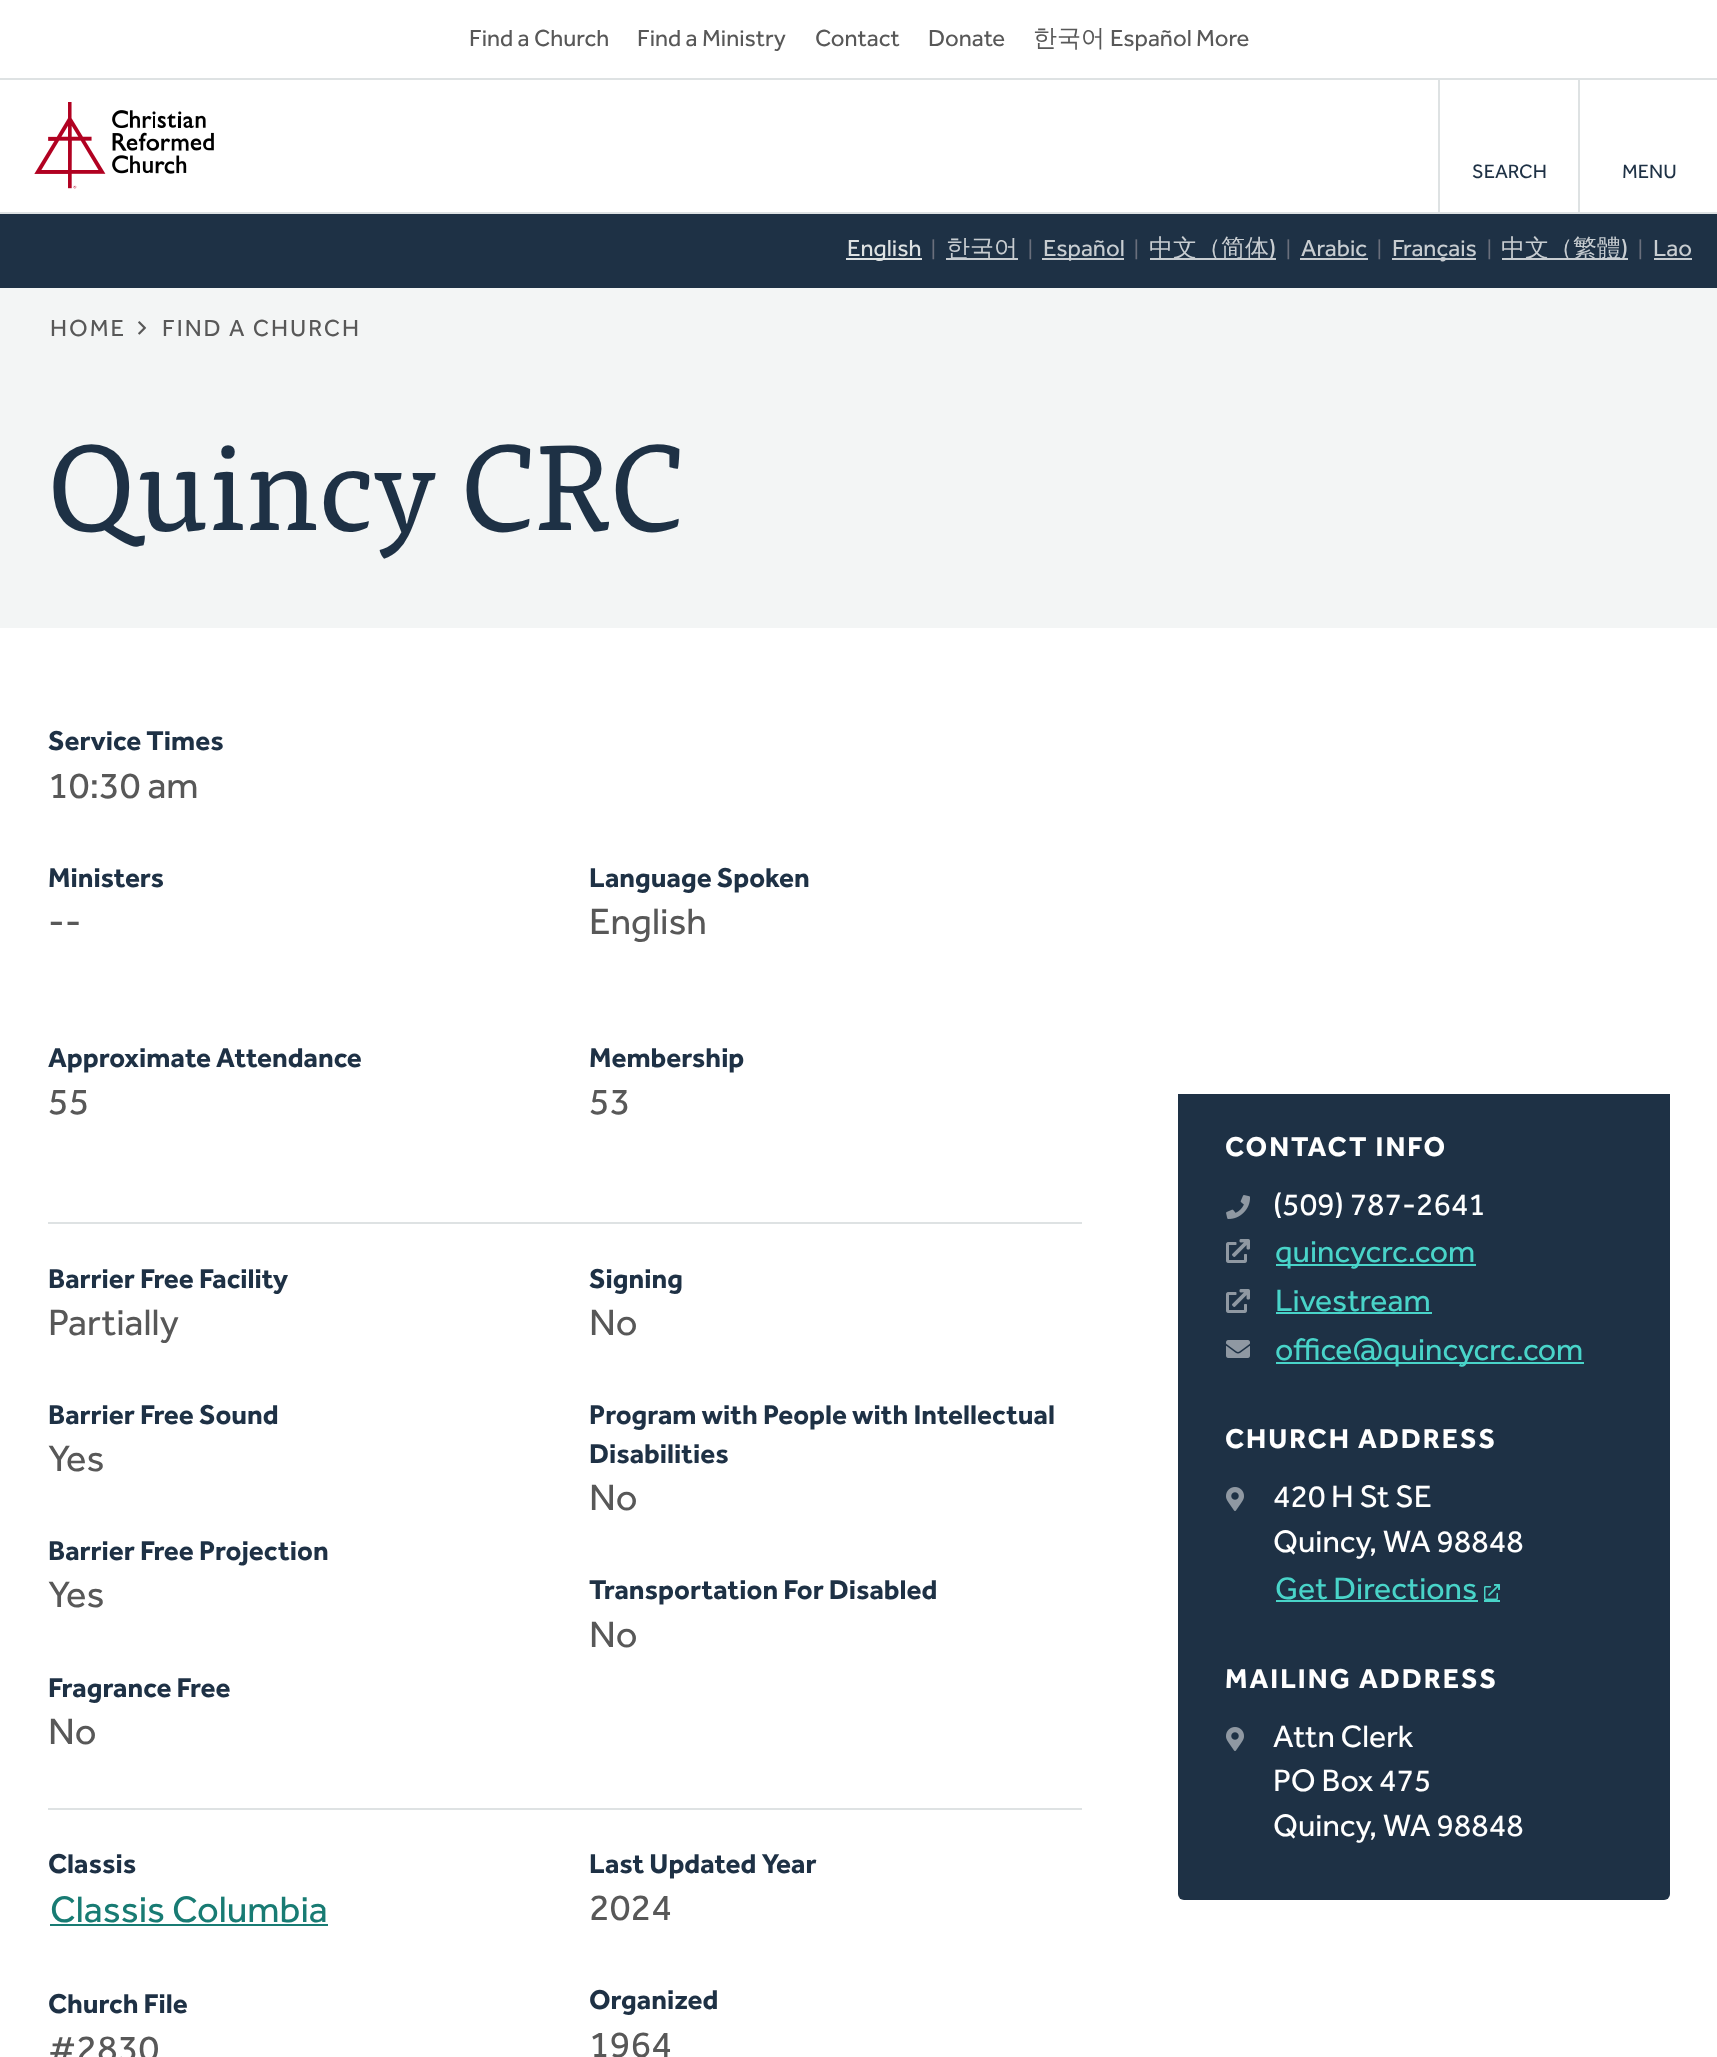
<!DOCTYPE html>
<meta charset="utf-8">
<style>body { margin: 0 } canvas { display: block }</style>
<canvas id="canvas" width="1717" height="2057"></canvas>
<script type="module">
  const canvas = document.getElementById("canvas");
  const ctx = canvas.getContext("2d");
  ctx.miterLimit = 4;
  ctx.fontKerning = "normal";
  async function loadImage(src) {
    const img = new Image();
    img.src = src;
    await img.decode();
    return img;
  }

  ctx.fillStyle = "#ffffff";
  ctx.fillRect(0, 0, 1717, 2057);
  ctx.fillStyle = "#dee2e3";
  ctx.fillRect(0, 212, 1717, 2);
  ctx.fillRect(0, 78, 1717, 2);
  ctx.font = "24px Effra";
  ctx.fillStyle = "#585858";
  ctx.fillText("Find a Church", 469, 46);
  ctx.fillText("Find a Ministry", 637, 46);
  ctx.fillText("Contact", 815, 46);
  ctx.fillText("Donate", 928, 46);
  ctx.font = "500 24px WenQuanYi Zen Hei";
  ctx.fillText("한국어", 1033, 46);
  ctx.font = "24px Effra";
  ctx.fillText("Español More", 1110, 46);
  ctx.drawImage(await loadImage("img1.png"), 34, 102, 180, 87);
  ctx.fillStyle = "#dee2e3";
  ctx.fillRect(1438, 80, 2, 132);
  ctx.font = "20px Effra";
  ctx.fillStyle = "#1e3145";
  ctx.fillText("SEARCH", 1472, 178);
  ctx.fillStyle = "#dee2e3";
  ctx.fillRect(1578, 80, 2, 132);
  ctx.fillStyle = "#1e3145";
  ctx.fillText("MENU", 1622, 178);
  ctx.fillRect(0, 214, 1717, 74);
  ctx.fillStyle = "#dee2e3";
  ctx.fillRect(846, 258, 76, 2);
  ctx.font = "24px Effra";
  ctx.fillText("English", 847, 256);
  ctx.font = "20px Effra";
  ctx.fillStyle = "#6a6f7c";
  ctx.fillText("|", 931, 256);
  ctx.fillStyle = "#c8cdd1";
  ctx.fillRect(946, 258, 72, 2);
  ctx.font = "500 24px WenQuanYi Zen Hei";
  ctx.fillText("한국어", 946, 256);
  ctx.font = "20px Effra";
  ctx.fillStyle = "#6a6f7c";
  ctx.fillText("|", 1028, 256);
  ctx.fillStyle = "#c8cdd1";
  ctx.fillRect(1042, 258, 82, 2);
  ctx.font = "24px Effra";
  ctx.fillText("Español", 1043, 256);
  ctx.font = "20px Effra";
  ctx.fillStyle = "#6a6f7c";
  ctx.fillText("|", 1134, 256);
  ctx.fillStyle = "#c8cdd1";
  ctx.fillRect(1150, 258, 126, 2);
  ctx.font = "500 24px WenQuanYi Zen Hei";
  ctx.fillText("中文（简体", 1149, 256);
  ctx.font = "24px Effra";
  ctx.fillText(")", 1269, 256);
  ctx.font = "20px Effra";
  ctx.fillStyle = "#6a6f7c";
  ctx.fillText("|", 1286, 256);
  ctx.font = "24px Effra";
  ctx.fillStyle = "#c8cdd1";
  ctx.fillText("Arabic", 1301, 256);
  ctx.fillRect(1300, 258, 68, 2);
  ctx.font = "20px Effra";
  ctx.fillStyle = "#6a6f7c";
  ctx.fillText("|", 1377, 256);
  ctx.fillStyle = "#c8cdd1";
  ctx.fillRect(1392, 258, 84, 2);
  ctx.font = "24px Effra";
  ctx.fillText("Français", 1392, 256);
  ctx.font = "20px Effra";
  ctx.fillStyle = "#6a6f7c";
  ctx.fillText("|", 1487, 256);
  ctx.fillStyle = "#c8cdd1";
  ctx.fillRect(1502, 258, 126, 2);
  ctx.font = "500 24px WenQuanYi Zen Hei";
  ctx.fillText("中文（繁體", 1501, 256);
  ctx.font = "24px Effra";
  ctx.fillText(")", 1621, 256);
  ctx.font = "20px Effra";
  ctx.fillStyle = "#6a6f7c";
  ctx.fillText("|", 1638, 256);
  ctx.font = "24px Effra";
  ctx.fillStyle = "#c8cdd1";
  ctx.fillText("Lao", 1653, 256);
  ctx.fillRect(1654, 258, 38, 2);
  ctx.fillStyle = "#f3f5f5";
  ctx.fillRect(0, 288, 1717, 340);
  ctx.letterSpacing = "2px";
  ctx.fillStyle = "#585858";
  ctx.fillText("HOME", 50, 336);
  ctx.drawImage(await loadImage("img2.png"), 138, 321, 9, 14);
  ctx.fillText("FIND A CHURCH", 162, 336);
  ctx.letterSpacing = "0px";
  ctx.font = "120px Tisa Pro";
  ctx.fillStyle = "#1e3145";
  ctx.fillText("Quincy CRC", 48, 530);
  ctx.font = "bold 28px Effra";
  ctx.fillText("Service Times", 48, 750);
  ctx.font = "38px Effra";
  ctx.fillStyle = "#585858";
  ctx.fillText("10:30 am", 48, 798);
  ctx.font = "bold 28px Effra";
  ctx.fillStyle = "#1e3145";
  ctx.fillText("Ministers", 48, 887);
  ctx.font = "38px Effra";
  ctx.fillStyle = "#585858";
  ctx.fillText("--", 48, 934);
  ctx.font = "bold 28px Effra";
  ctx.fillStyle = "#1e3145";
  ctx.fillText("Language Spoken", 589, 887);
  ctx.font = "38px Effra";
  ctx.fillStyle = "#585858";
  ctx.fillText("English", 589, 934);
  ctx.font = "bold 28px Effra";
  ctx.fillStyle = "#1e3145";
  ctx.fillText("Approximate Attendance", 48, 1067);
  ctx.font = "38px Effra";
  ctx.fillStyle = "#585858";
  ctx.fillText("55", 48, 1114);
  ctx.font = "bold 28px Effra";
  ctx.fillStyle = "#1e3145";
  ctx.fillText("Membership", 589, 1067);
  ctx.font = "38px Effra";
  ctx.fillStyle = "#585858";
  ctx.fillText("53", 589, 1114);
  ctx.fillStyle = "#dee2e3";
  ctx.fillRect(48, 1222, 1034, 2);
  ctx.font = "bold 28px Effra";
  ctx.fillStyle = "#1e3145";
  ctx.fillText("Barrier Free Facility", 48, 1288);
  ctx.font = "38px Effra";
  ctx.fillStyle = "#585858";
  ctx.fillText("Partially", 48, 1335);
  ctx.font = "bold 28px Effra";
  ctx.fillStyle = "#1e3145";
  ctx.fillText("Signing", 589, 1288);
  ctx.font = "38px Effra";
  ctx.fillStyle = "#585858";
  ctx.fillText("No", 589, 1335);
  ctx.font = "bold 28px Effra";
  ctx.fillStyle = "#1e3145";
  ctx.fillText("Barrier Free Sound", 48, 1424);
  ctx.font = "38px Effra";
  ctx.fillStyle = "#585858";
  ctx.fillText("Yes", 48, 1471);
  ctx.font = "bold 28px Effra";
  ctx.fillStyle = "#1e3145";
  ctx.fillText("Program with People with Intellectual", 589, 1424);
  ctx.fillText("Disabilities", 589, 1463);
  ctx.font = "38px Effra";
  ctx.fillStyle = "#585858";
  ctx.fillText("No", 589, 1510);
  ctx.font = "bold 28px Effra";
  ctx.fillStyle = "#1e3145";
  ctx.fillText("Barrier Free Projection", 48, 1560);
  ctx.font = "38px Effra";
  ctx.fillStyle = "#585858";
  ctx.fillText("Yes", 48, 1607);
  ctx.font = "bold 28px Effra";
  ctx.fillStyle = "#1e3145";
  ctx.fillText("Transportation For Disabled", 589, 1599);
  ctx.font = "38px Effra";
  ctx.fillStyle = "#585858";
  ctx.fillText("No", 589, 1647);
  ctx.font = "bold 28px Effra";
  ctx.fillStyle = "#1e3145";
  ctx.fillText("Fragrance Free", 48, 1697);
  ctx.font = "38px Effra";
  ctx.fillStyle = "#585858";
  ctx.fillText("No", 48, 1744);
  ctx.fillStyle = "#dee2e3";
  ctx.fillRect(48, 1808, 1034, 2);
  ctx.font = "bold 28px Effra";
  ctx.fillStyle = "#1e3145";
  ctx.fillText("Classis", 48, 1873);
  ctx.font = "38px Effra";
  ctx.fillStyle = "#187b73";
  ctx.fillText("Classis Columbia", 50, 1922);
  ctx.fillRect(50, 1924, 278, 2);
  ctx.font = "bold 28px Effra";
  ctx.fillStyle = "#1e3145";
  ctx.fillText("Last Updated Year", 589, 1873);
  ctx.font = "38px Effra";
  ctx.fillStyle = "#585858";
  ctx.fillText("2024", 589, 1920);
  ctx.font = "bold 28px Effra";
  ctx.fillStyle = "#1e3145";
  ctx.fillText("Church File", 48, 2013);
  ctx.font = "38px Effra";
  ctx.fillStyle = "#585858";
  ctx.fillText("#2830", 48, 2061);
  ctx.font = "bold 28px Effra";
  ctx.fillStyle = "#1e3145";
  ctx.fillText("Organized", 589, 2009);
  ctx.font = "38px Effra";
  ctx.fillStyle = "#585858";
  ctx.fillText("1964", 589, 2057);
  ctx.fillStyle = "#1e3145";
  ctx.beginPath();
  ctx.roundRect(1178, 1094, 492, 806, [0, 0, 6, 6]);
  ctx.fill();
  ctx.letterSpacing = "2px";
  ctx.font = "bold 28px Effra";
  ctx.fillStyle = "#ffffff";
  ctx.fillText("CONTACT INFO", 1225, 1156);
  ctx.drawImage(await loadImage("img3.png"), 1226, 1195, 24, 24);
  ctx.letterSpacing = "0px";
  ctx.font = "32px Effra";
  ctx.fillText("(509) 787-2641", 1273, 1215);
  ctx.drawImage(await loadImage("img4.png"), 1226, 1239, 24, 24);
  ctx.fillStyle = "#49d4c9";
  ctx.fillRect(1276, 1264, 200, 2);
  ctx.fillText("quincycrc.com", 1275, 1262);
  ctx.drawImage(await loadImage("img4.png"), 1226, 1289, 24, 24);
  ctx.fillText("Livestream", 1275, 1311);
  ctx.fillRect(1276, 1312, 156, 2);
  ctx.drawImage(await loadImage("img5.png"), 1226, 1340, 24, 18);
  ctx.fillRect(1276, 1362, 308, 2);
  ctx.fillText("office@quincycrc.com", 1275, 1360);
  ctx.letterSpacing = "2px";
  ctx.font = "bold 28px Effra";
  ctx.fillStyle = "#ffffff";
  ctx.fillText("CHURCH ADDRESS", 1225, 1448);
  ctx.drawImage(await loadImage("img6.png"), 1226, 1487, 18, 24);
  ctx.letterSpacing = "0px";
  ctx.font = "32px Effra";
  ctx.fillText("420 H St SE", 1273, 1507);
  ctx.fillText("Quincy, WA 98848", 1273, 1552);
  ctx.fillStyle = "#49d4c9";
  ctx.fillText("Get Directions", 1275, 1599);
  ctx.fillRect(1276, 1600, 202, 2);
  ctx.drawImage(await loadImage("img7.png"), 1484, 1584, 16, 16);
  ctx.fillRect(1484, 1600, 16, 2);
  ctx.letterSpacing = "2px";
  ctx.font = "bold 28px Effra";
  ctx.fillStyle = "#ffffff";
  ctx.fillText("MAILING ADDRESS", 1225, 1688);
  ctx.drawImage(await loadImage("img6.png"), 1226, 1727, 18, 24);
  ctx.letterSpacing = "0px";
  ctx.font = "32px Effra";
  ctx.fillText("Attn Clerk", 1273, 1747);
  ctx.fillText("PO Box 475", 1273, 1791);
  ctx.fillText("Quincy, WA 98848", 1273, 1836);
</script>
